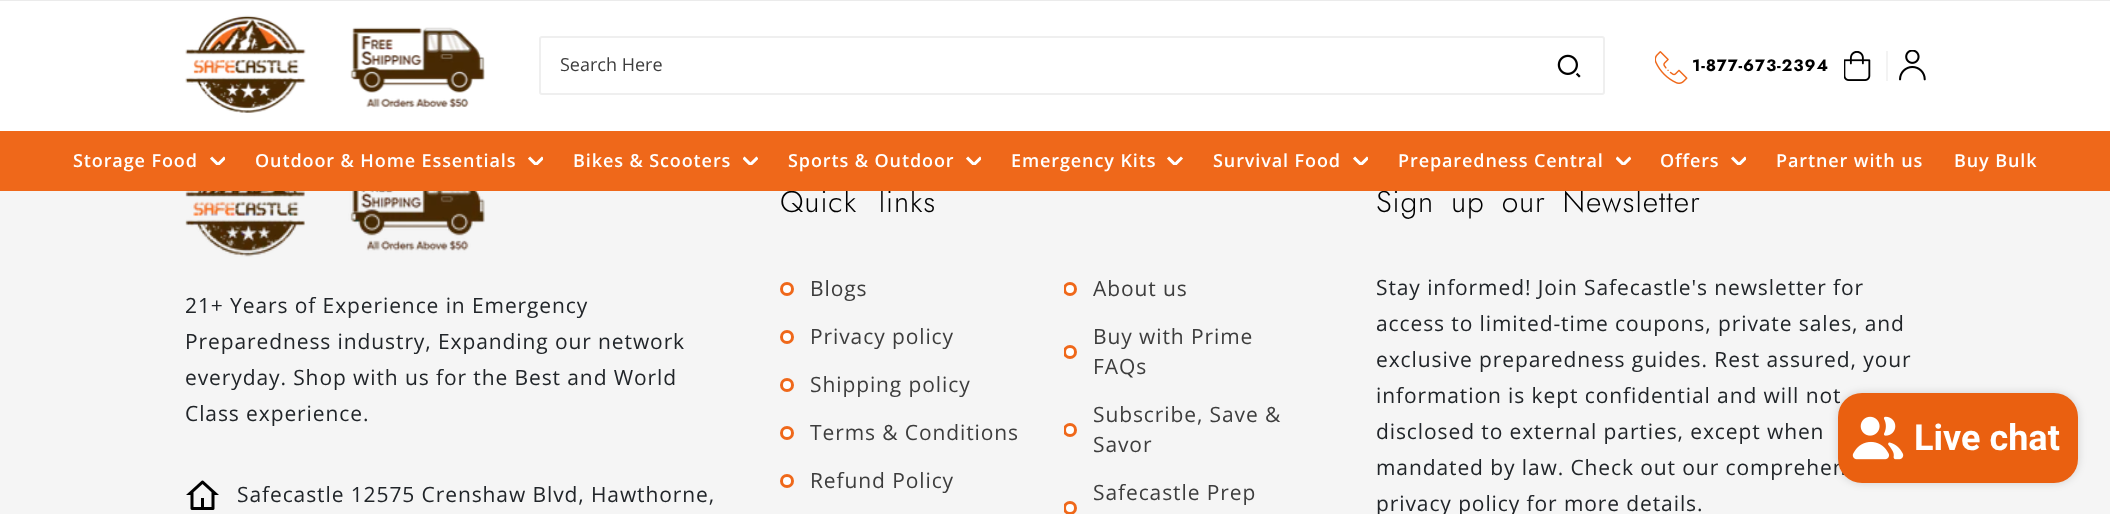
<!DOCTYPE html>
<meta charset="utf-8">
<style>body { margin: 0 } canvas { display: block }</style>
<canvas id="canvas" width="2110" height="514"></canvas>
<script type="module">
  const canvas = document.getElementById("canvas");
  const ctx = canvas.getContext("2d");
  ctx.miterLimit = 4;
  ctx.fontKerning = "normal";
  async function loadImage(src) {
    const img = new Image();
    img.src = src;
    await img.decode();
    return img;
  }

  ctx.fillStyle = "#f5f5f5";
  ctx.fillRect(0, 0, 2110, 514);
  ctx.fillStyle = "#ebebeb";
  ctx.fillRect(0, 0, 2110, 1);
  ctx.fillStyle = "#ffffff";
  ctx.fillRect(0, 1, 2110, 130);
  ctx.drawImage(await loadImage("img1.png"), 185, 15, 300, 98);
  ctx.beginPath();
  ctx.roundRect(540, 37, 1064, 57, 2);
  ctx.strokeStyle = "#efefef";
  ctx.lineWidth = 2;
  ctx.stroke();
  ctx.font = "18px Open Sans";
  ctx.fillStyle = "#3d3d3d";
  ctx.fillText("Search Here", 560, 71);
  ctx.drawImage(await loadImage("img2.png"), 1557, 54, 24, 24);
  ctx.drawImage(await loadImage("img3.png"), 1655, 51, 33, 33);
  ctx.letterSpacing = "0.9px";
  ctx.font = "bold 16.5px Jost";
  ctx.fillStyle = "#000000";
  ctx.fillText("1-877-673-2394", 1692, 71);
  ctx.drawImage(await loadImage("img4.png"), 1844, 51, 27, 30);
  ctx.fillStyle = "#f3f3f3";
  ctx.fillRect(1886, 51, 2, 30);
  ctx.drawImage(await loadImage("img5.png"), 1899, 50, 27, 31);
  ctx.wordSpacing = "12px";
  ctx.font = "300 30px Jost";
  ctx.fillStyle = "#000000";
  ctx.fillText("Quick links", 780, 212);
  ctx.wordSpacing = "7px";
  ctx.fillText("Sign up our Newsletter", 1376, 212);
  ctx.fillStyle = "#ef681a";
  ctx.fillRect(0, 131, 2110, 60);
  ctx.wordSpacing = "0px";
  ctx.font = "600 18px Open Sans";
  ctx.fillStyle = "#ffffff";
  ctx.fillText("Storage Food", 73, 167);
  ctx.save();
  ctx.beginPath();
  ctx.rect(210, 156, 15, 9);
  ctx.clip();
  ctx.beginPath();
  ctx.moveTo(225, 157.5);
  ctx.lineTo(218, 164.5);
  ctx.lineTo(211, 157.5);
  ctx.strokeStyle = "#ffffff";
  ctx.lineWidth = 3.1;
  ctx.stroke();
  ctx.restore();
  ctx.fillText("Outdoor & Home Essentials", 255, 167);
  ctx.save();
  ctx.beginPath();
  ctx.rect(528, 156, 15, 9);
  ctx.clip();
  ctx.beginPath();
  ctx.moveTo(543, 157.5);
  ctx.lineTo(536, 164.5);
  ctx.lineTo(529, 157.5);
  ctx.strokeStyle = "#ffffff";
  ctx.lineWidth = 3.1;
  ctx.stroke();
  ctx.restore();
  ctx.fillText("Bikes & Scooters", 573, 167);
  ctx.save();
  ctx.beginPath();
  ctx.rect(743, 156, 15, 9);
  ctx.clip();
  ctx.beginPath();
  ctx.moveTo(757.5, 157.5);
  ctx.lineTo(750.5, 164.5);
  ctx.lineTo(743.5, 157.5);
  ctx.strokeStyle = "#ffffff";
  ctx.lineWidth = 3.1;
  ctx.stroke();
  ctx.restore();
  ctx.fillText("Sports & Outdoor", 788, 167);
  ctx.save();
  ctx.beginPath();
  ctx.rect(966, 156, 15, 9);
  ctx.clip();
  ctx.beginPath();
  ctx.moveTo(981, 157.5);
  ctx.lineTo(974, 164.5);
  ctx.lineTo(967, 157.5);
  ctx.strokeStyle = "#ffffff";
  ctx.lineWidth = 3.1;
  ctx.stroke();
  ctx.restore();
  ctx.fillText("Emergency Kits", 1011, 167);
  ctx.save();
  ctx.beginPath();
  ctx.rect(1167, 156, 17, 9);
  ctx.clip();
  ctx.beginPath();
  ctx.moveTo(1182, 157.5);
  ctx.lineTo(1175, 164.5);
  ctx.lineTo(1168, 157.5);
  ctx.strokeStyle = "#ffffff";
  ctx.lineWidth = 3.1;
  ctx.stroke();
  ctx.restore();
  ctx.fillText("Survival Food", 1213, 167);
  ctx.save();
  ctx.beginPath();
  ctx.rect(1353, 156, 15, 9);
  ctx.clip();
  ctx.beginPath();
  ctx.moveTo(1368, 157.5);
  ctx.lineTo(1361, 164.5);
  ctx.lineTo(1354, 157.5);
  ctx.strokeStyle = "#ffffff";
  ctx.lineWidth = 3.1;
  ctx.stroke();
  ctx.restore();
  ctx.fillText("Preparedness Central", 1398, 167);
  ctx.save();
  ctx.beginPath();
  ctx.rect(1616, 156, 15, 9);
  ctx.clip();
  ctx.beginPath();
  ctx.moveTo(1630.5, 157.5);
  ctx.lineTo(1623.5, 164.5);
  ctx.lineTo(1616.5, 157.5);
  ctx.strokeStyle = "#ffffff";
  ctx.lineWidth = 3.1;
  ctx.stroke();
  ctx.restore();
  ctx.fillText("Offers", 1660, 167);
  ctx.save();
  ctx.beginPath();
  ctx.rect(1731, 156, 15, 9);
  ctx.clip();
  ctx.beginPath();
  ctx.moveTo(1746, 157.5);
  ctx.lineTo(1739, 164.5);
  ctx.lineTo(1732, 157.5);
  ctx.strokeStyle = "#ffffff";
  ctx.lineWidth = 3.1;
  ctx.stroke();
  ctx.restore();
  ctx.fillText("Partner with us", 1776, 167);
  ctx.fillText("Buy Bulk", 1954, 167);
  ctx.drawImage(await loadImage("img6.png"), 185, 191, 300, 66);
  ctx.font = "21px Open Sans";
  ctx.fillStyle = "#212529";
  ctx.fillText("21+ Years of Experience in Emergency", 185, 313);
  ctx.fillText("Preparedness industry, Expanding our network", 185, 349);
  ctx.fillText("everyday. Shop with us for the Best and World", 185, 385);
  ctx.fillText("Class experience.", 185, 421);
  ctx.drawImage(await loadImage("img7.png"), 186, 480, 33, 30);
  ctx.fillText("Safecastle 12575 Crenshaw Blvd, Hawthorne,", 237, 502);
  ctx.fillStyle = "#ef681a";
  ctx.beginPath();
  ctx.arc(787, 289, 7, 0, Math.PI * 2);
  ctx.fill();
  ctx.fillStyle = "#ffffff";
  ctx.beginPath();
  ctx.arc(787, 289, 4, 0, Math.PI * 2);
  ctx.fill();
  ctx.fillStyle = "#3d3d3d";
  ctx.fillText("Blogs", 810, 296);
  ctx.save();
  ctx.beginPath();
  ctx.rect(1064, 282, 13, 14);
  ctx.clip();
  ctx.fillStyle = "#ef681a";
  ctx.beginPath();
  ctx.arc(1070, 289, 7, 0, Math.PI * 2);
  ctx.fill();
  ctx.restore();
  ctx.fillStyle = "#ffffff";
  ctx.beginPath();
  ctx.arc(1070, 289, 4, 0, Math.PI * 2);
  ctx.fill();
  ctx.fillStyle = "#3d3d3d";
  ctx.fillText("About us", 1093, 296);
  ctx.fillStyle = "#ef681a";
  ctx.beginPath();
  ctx.arc(787, 337, 7, 0, Math.PI * 2);
  ctx.fill();
  ctx.fillStyle = "#ffffff";
  ctx.beginPath();
  ctx.arc(787, 337, 4, 0, Math.PI * 2);
  ctx.fill();
  ctx.fillStyle = "#3d3d3d";
  ctx.fillText("Privacy policy", 810, 344);
  ctx.save();
  ctx.beginPath();
  ctx.rect(1064, 345, 13, 14);
  ctx.clip();
  ctx.fillStyle = "#ef681a";
  ctx.beginPath();
  ctx.arc(1070, 352, 7, 0, Math.PI * 2);
  ctx.fill();
  ctx.restore();
  ctx.fillStyle = "#ffffff";
  ctx.beginPath();
  ctx.arc(1070, 352, 4, 0, Math.PI * 2);
  ctx.fill();
  ctx.fillStyle = "#3d3d3d";
  ctx.fillText("Buy with Prime", 1093, 344);
  ctx.fillText("FAQs", 1093, 374);
  ctx.fillStyle = "#ef681a";
  ctx.beginPath();
  ctx.arc(787, 385, 7, 0, Math.PI * 2);
  ctx.fill();
  ctx.fillStyle = "#ffffff";
  ctx.beginPath();
  ctx.arc(787, 385, 4, 0, Math.PI * 2);
  ctx.fill();
  ctx.fillStyle = "#3d3d3d";
  ctx.fillText("Shipping policy", 810, 392);
  ctx.fillStyle = "#ef681a";
  ctx.beginPath();
  ctx.arc(787, 433, 7, 0, Math.PI * 2);
  ctx.fill();
  ctx.fillStyle = "#ffffff";
  ctx.beginPath();
  ctx.arc(787, 433, 4, 0, Math.PI * 2);
  ctx.fill();
  ctx.fillStyle = "#3d3d3d";
  ctx.fillText("Terms & Conditions", 810, 440);
  ctx.save();
  ctx.beginPath();
  ctx.rect(1064, 423, 13, 14);
  ctx.clip();
  ctx.fillStyle = "#ef681a";
  ctx.beginPath();
  ctx.arc(1070, 430, 7, 0, Math.PI * 2);
  ctx.fill();
  ctx.restore();
  ctx.fillStyle = "#ffffff";
  ctx.beginPath();
  ctx.arc(1070, 430, 4, 0, Math.PI * 2);
  ctx.fill();
  ctx.fillStyle = "#3d3d3d";
  ctx.fillText("Subscribe, Save &", 1093, 422);
  ctx.fillText("Savor", 1093, 452);
  ctx.fillStyle = "#ef681a";
  ctx.beginPath();
  ctx.arc(787, 481, 7, 0, Math.PI * 2);
  ctx.fill();
  ctx.fillStyle = "#ffffff";
  ctx.beginPath();
  ctx.arc(787, 481, 4, 0, Math.PI * 2);
  ctx.fill();
  ctx.fillStyle = "#3d3d3d";
  ctx.fillText("Refund Policy", 810, 488);
  ctx.save();
  ctx.beginPath();
  ctx.rect(1064, 501, 13, 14);
  ctx.clip();
  ctx.fillStyle = "#ef681a";
  ctx.beginPath();
  ctx.arc(1070, 508, 7, 0, Math.PI * 2);
  ctx.fill();
  ctx.restore();
  ctx.fillStyle = "#ffffff";
  ctx.beginPath();
  ctx.arc(1070, 508, 4, 0, Math.PI * 2);
  ctx.fill();
  ctx.fillStyle = "#3d3d3d";
  ctx.fillText("Safecastle Prep", 1093, 500);
  ctx.fillStyle = "#212529";
  ctx.fillText("Stay informed! Join Safecastle's newsletter for", 1376, 295);
  ctx.fillText("access to limited-time coupons, private sales, and", 1376, 331);
  ctx.fillText("exclusive preparedness guides. Rest assured, your", 1376, 367);
  ctx.fillText("information is kept confidential and will not", 1376, 403);
  ctx.fillText("disclosed to external parties, except when", 1376, 439);
  ctx.fillText("mandated by law. Check out our comprehen", 1376, 475);
  ctx.fillText("privacy policy for more details.", 1376, 511);
  ctx.fillStyle = "rgba(0, 0, 0, 0.15)";
  ctx.filter = "blur(4px)";
  ctx.beginPath();
  ctx.roundRect(1838, 393, 240, 90, 24);
  ctx.fill();
  ctx.filter = "none";
  ctx.fillStyle = "#ea6010";
  ctx.beginPath();
  ctx.roundRect(1838, 393, 240, 90, 24);
  ctx.fill();
  ctx.drawImage(await loadImage("img8.png"), 1852, 416, 52, 44);
  ctx.letterSpacing = "0px";
  ctx.font = "bold 36px Roboto";
  ctx.fillStyle = "#ffffff";
  ctx.fillText("Live chat", 1914, 450);
</script>
